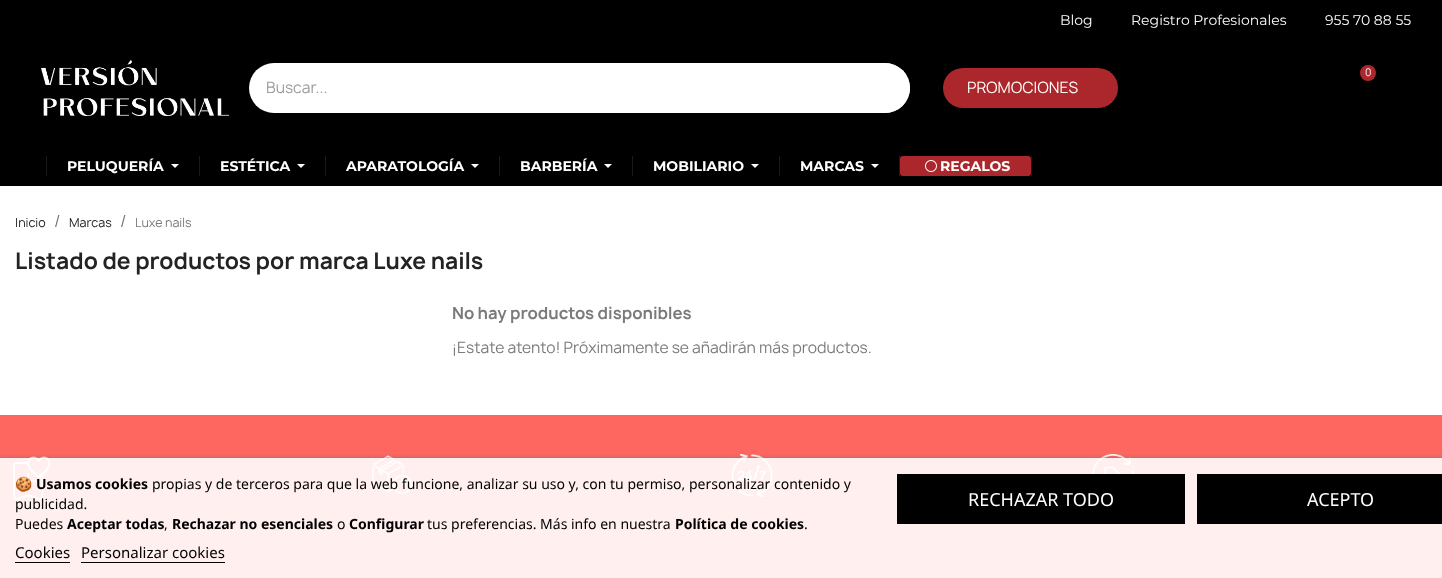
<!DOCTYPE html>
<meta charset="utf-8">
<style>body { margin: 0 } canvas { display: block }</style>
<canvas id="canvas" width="1442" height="578"></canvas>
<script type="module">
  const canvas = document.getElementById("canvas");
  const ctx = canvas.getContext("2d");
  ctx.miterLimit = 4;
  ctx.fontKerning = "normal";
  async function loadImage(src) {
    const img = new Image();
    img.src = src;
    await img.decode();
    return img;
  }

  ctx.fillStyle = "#ffffff";
  ctx.fillRect(0, 0, 1442, 578);
  ctx.fillStyle = "#000000";
  ctx.fillRect(0, 0, 1442, 186);
  ctx.font = "100 14px Montserrat";
  ctx.fillStyle = "#ffffff";
  ctx.fillText("Blog", 1060, 25);
  ctx.fillText("Registro Profesionales", 1131, 25);
  ctx.fillText("955 70 88 55", 1325, 25);
  ctx.fillStyle = "#fe6660";
  ctx.fillRect(0, 415, 1442, 163);
  ctx.drawImage(await loadImage("img3.png"), 13, 456, 38, 45);
  ctx.drawImage(await loadImage("img4.png"), 371, 455, 42, 40);
  ctx.drawImage(await loadImage("img5.png"), 731, 454, 42, 43);
  ctx.drawImage(await loadImage("img6.png"), 1092, 454, 42, 20);
  ctx.save();
  ctx.beginPath();
  ctx.rect(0, 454, 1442, 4);
  ctx.clip();
  ctx.fillStyle = "#707070";
  ctx.filter = "blur(2.5px)";
  ctx.beginPath();
  ctx.rect(0, 459, 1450, 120);
  ctx.fill();
  ctx.filter = "none";
  ctx.restore();
  ctx.fillStyle = "rgba(255, 255, 255, 0.9)";
  ctx.fillRect(0, 458, 1442, 120);
  ctx.font = "14px Noto Color Emoji";
  ctx.fillStyle = "#000000";
  ctx.fillText("🍪", 15, 489);
  ctx.font = "bold 14px Noto Sans";
  ctx.fillText("Usamos cookies", 36, 489);
  ctx.font = "14px Noto Sans";
  ctx.fillText("propias y de terceros para que la web funcione, analizar su uso y, con tu permiso, personalizar contenido y", 152, 489);
  ctx.fillText("publicidad.", 15, 509);
  ctx.fillText("Puedes", 15, 529);
  ctx.font = "bold 14px Noto Sans";
  ctx.fillText("Aceptar todas", 67, 529);
  ctx.font = "14px Noto Sans";
  ctx.fillText(",", 164, 529);
  ctx.font = "bold 14px Noto Sans";
  ctx.fillText("Rechazar no esenciales", 172, 529);
  ctx.font = "14px Noto Sans";
  ctx.fillText("o", 337, 529);
  ctx.font = "bold 14px Noto Sans";
  ctx.fillText("Configurar", 349, 529);
  ctx.font = "14px Noto Sans";
  ctx.fillText("tus preferencias. Más info en nuestra", 427, 529);
  ctx.font = "bold 14px Noto Sans";
  ctx.fillText("Política de cookies", 675, 529);
  ctx.font = "14px Noto Sans";
  ctx.fillText(".", 804, 529);
  ctx.font = "15px Noto Sans";
  ctx.fillText("Cookies", 15, 558);
  ctx.fillRect(15, 562, 55, 1);
  ctx.fillText("Personalizar cookies", 81, 558);
  ctx.fillRect(81, 562, 144, 1);
  ctx.fillRect(897, 474, 288, 50);
  ctx.font = "18px Noto Sans";
  ctx.fillStyle = "#ffffff";
  ctx.fillText("RECHAZAR TODO", 968, 506);
  ctx.fillStyle = "#000000";
  ctx.fillRect(1197, 474, 245, 50);
  ctx.fillStyle = "#ffffff";
  ctx.fillText("ACEPTO", 1307, 506);
  ctx.drawImage(await loadImage("img1.png"), 41, 60, 188, 56);
  ctx.fillStyle = "#ac272c";
  ctx.beginPath();
  ctx.arc(1368, 73, 8, 0, Math.PI * 2);
  ctx.fill();
  ctx.font = "10px Manrope";
  ctx.fillStyle = "#ffffff";
  ctx.fillText("0", 1365, 76);
  ctx.beginPath();
  ctx.roundRect(249, 63, 661, 50, 25);
  ctx.fill();
  ctx.font = "15px Manrope";
  ctx.fillStyle = "#999b9d";
  ctx.fillText("Buscar...", 266, 93);
  ctx.fillStyle = "#ffffff";
  ctx.beginPath();
  ctx.roundRect(860, 63, 50, 50, [0, 25, 25, 0]);
  ctx.fill();
  ctx.fillStyle = "#ac272c";
  ctx.beginPath();
  ctx.roundRect(943, 68, 175, 40, 20);
  ctx.fill();
  ctx.fillStyle = "#ffffff";
  ctx.fillText("PROMOCIONES", 967, 93);
  ctx.fillStyle = "#1a1a1a";
  ctx.fillRect(46, 156, 1, 20);
  ctx.font = "bold 14px Montserrat";
  ctx.fillStyle = "#ffffff";
  ctx.fillText("PELUQUERÍA", 67, 171);
  ctx.beginPath();
  ctx.moveTo(171, 164);
  ctx.lineTo(179, 164);
  ctx.lineTo(175, 168);
  ctx.closePath();
  ctx.fill();
  ctx.fillStyle = "#1a1a1a";
  ctx.fillRect(199, 156, 1, 20);
  ctx.fillStyle = "#ffffff";
  ctx.fillText("ESTÉTICA", 220, 171);
  ctx.beginPath();
  ctx.moveTo(297, 164);
  ctx.lineTo(305, 164);
  ctx.lineTo(301, 168);
  ctx.closePath();
  ctx.fill();
  ctx.fillStyle = "#1a1a1a";
  ctx.fillRect(325, 156, 1, 20);
  ctx.fillStyle = "#ffffff";
  ctx.fillText("APARATOLOGÍA", 346, 171);
  ctx.beginPath();
  ctx.moveTo(471, 164);
  ctx.lineTo(479, 164);
  ctx.lineTo(475, 168);
  ctx.closePath();
  ctx.fill();
  ctx.fillStyle = "#1a1a1a";
  ctx.fillRect(499, 156, 1, 20);
  ctx.fillStyle = "#ffffff";
  ctx.fillText("BARBERÍA", 520, 171);
  ctx.beginPath();
  ctx.moveTo(604, 164);
  ctx.lineTo(612, 164);
  ctx.lineTo(608, 168);
  ctx.closePath();
  ctx.fill();
  ctx.fillStyle = "#1a1a1a";
  ctx.fillRect(632, 156, 1, 20);
  ctx.fillStyle = "#ffffff";
  ctx.fillText("MOBILIARIO", 653, 171);
  ctx.beginPath();
  ctx.moveTo(751, 164);
  ctx.lineTo(759, 164);
  ctx.lineTo(755, 168);
  ctx.closePath();
  ctx.fill();
  ctx.fillStyle = "#1a1a1a";
  ctx.fillRect(779, 156, 1, 20);
  ctx.fillStyle = "#ffffff";
  ctx.fillText("MARCAS", 800, 171);
  ctx.beginPath();
  ctx.moveTo(871, 164);
  ctx.lineTo(879, 164);
  ctx.lineTo(875, 168);
  ctx.closePath();
  ctx.fill();
  ctx.fillStyle = "#1a1a1a";
  ctx.fillRect(1031, 156, 1, 20);
  ctx.fillRect(899, 156, 1, 20);
  ctx.fillStyle = "#ac272c";
  ctx.beginPath();
  ctx.roundRect(900, 156, 131, 20, 3);
  ctx.fill();
  ctx.drawImage(await loadImage("img2.png"), 925, 160, 12, 12);
  ctx.fillStyle = "#ffffff";
  ctx.fillText("REGALOS", 940, 171);
  ctx.font = "12px Manrope";
  ctx.fillStyle = "#232323";
  ctx.fillText("Inicio", 15, 227);
  ctx.font = "16px Manrope";
  ctx.fillStyle = "#7a7a7a";
  ctx.fillText("/", 54, 227);
  ctx.font = "12px Manrope";
  ctx.fillStyle = "#232323";
  ctx.fillText("Marcas", 69, 227);
  ctx.font = "16px Manrope";
  ctx.fillStyle = "#7a7a7a";
  ctx.fillText("/", 120, 227);
  ctx.font = "12px Manrope";
  ctx.fillText("Luxe nails", 135, 227);
  ctx.font = "bold 22px Manrope";
  ctx.fillStyle = "#232323";
  ctx.fillText("Listado de productos por marca Luxe nails", 15, 269);
  ctx.font = "bold 16px Manrope";
  ctx.fillStyle = "#7a7a7a";
  ctx.fillText("No hay productos disponibles", 452, 319);
  ctx.font = "15px Manrope";
  ctx.fillText("¡Estate atento! Próximamente se añadirán más productos.", 452, 353);
</script>
